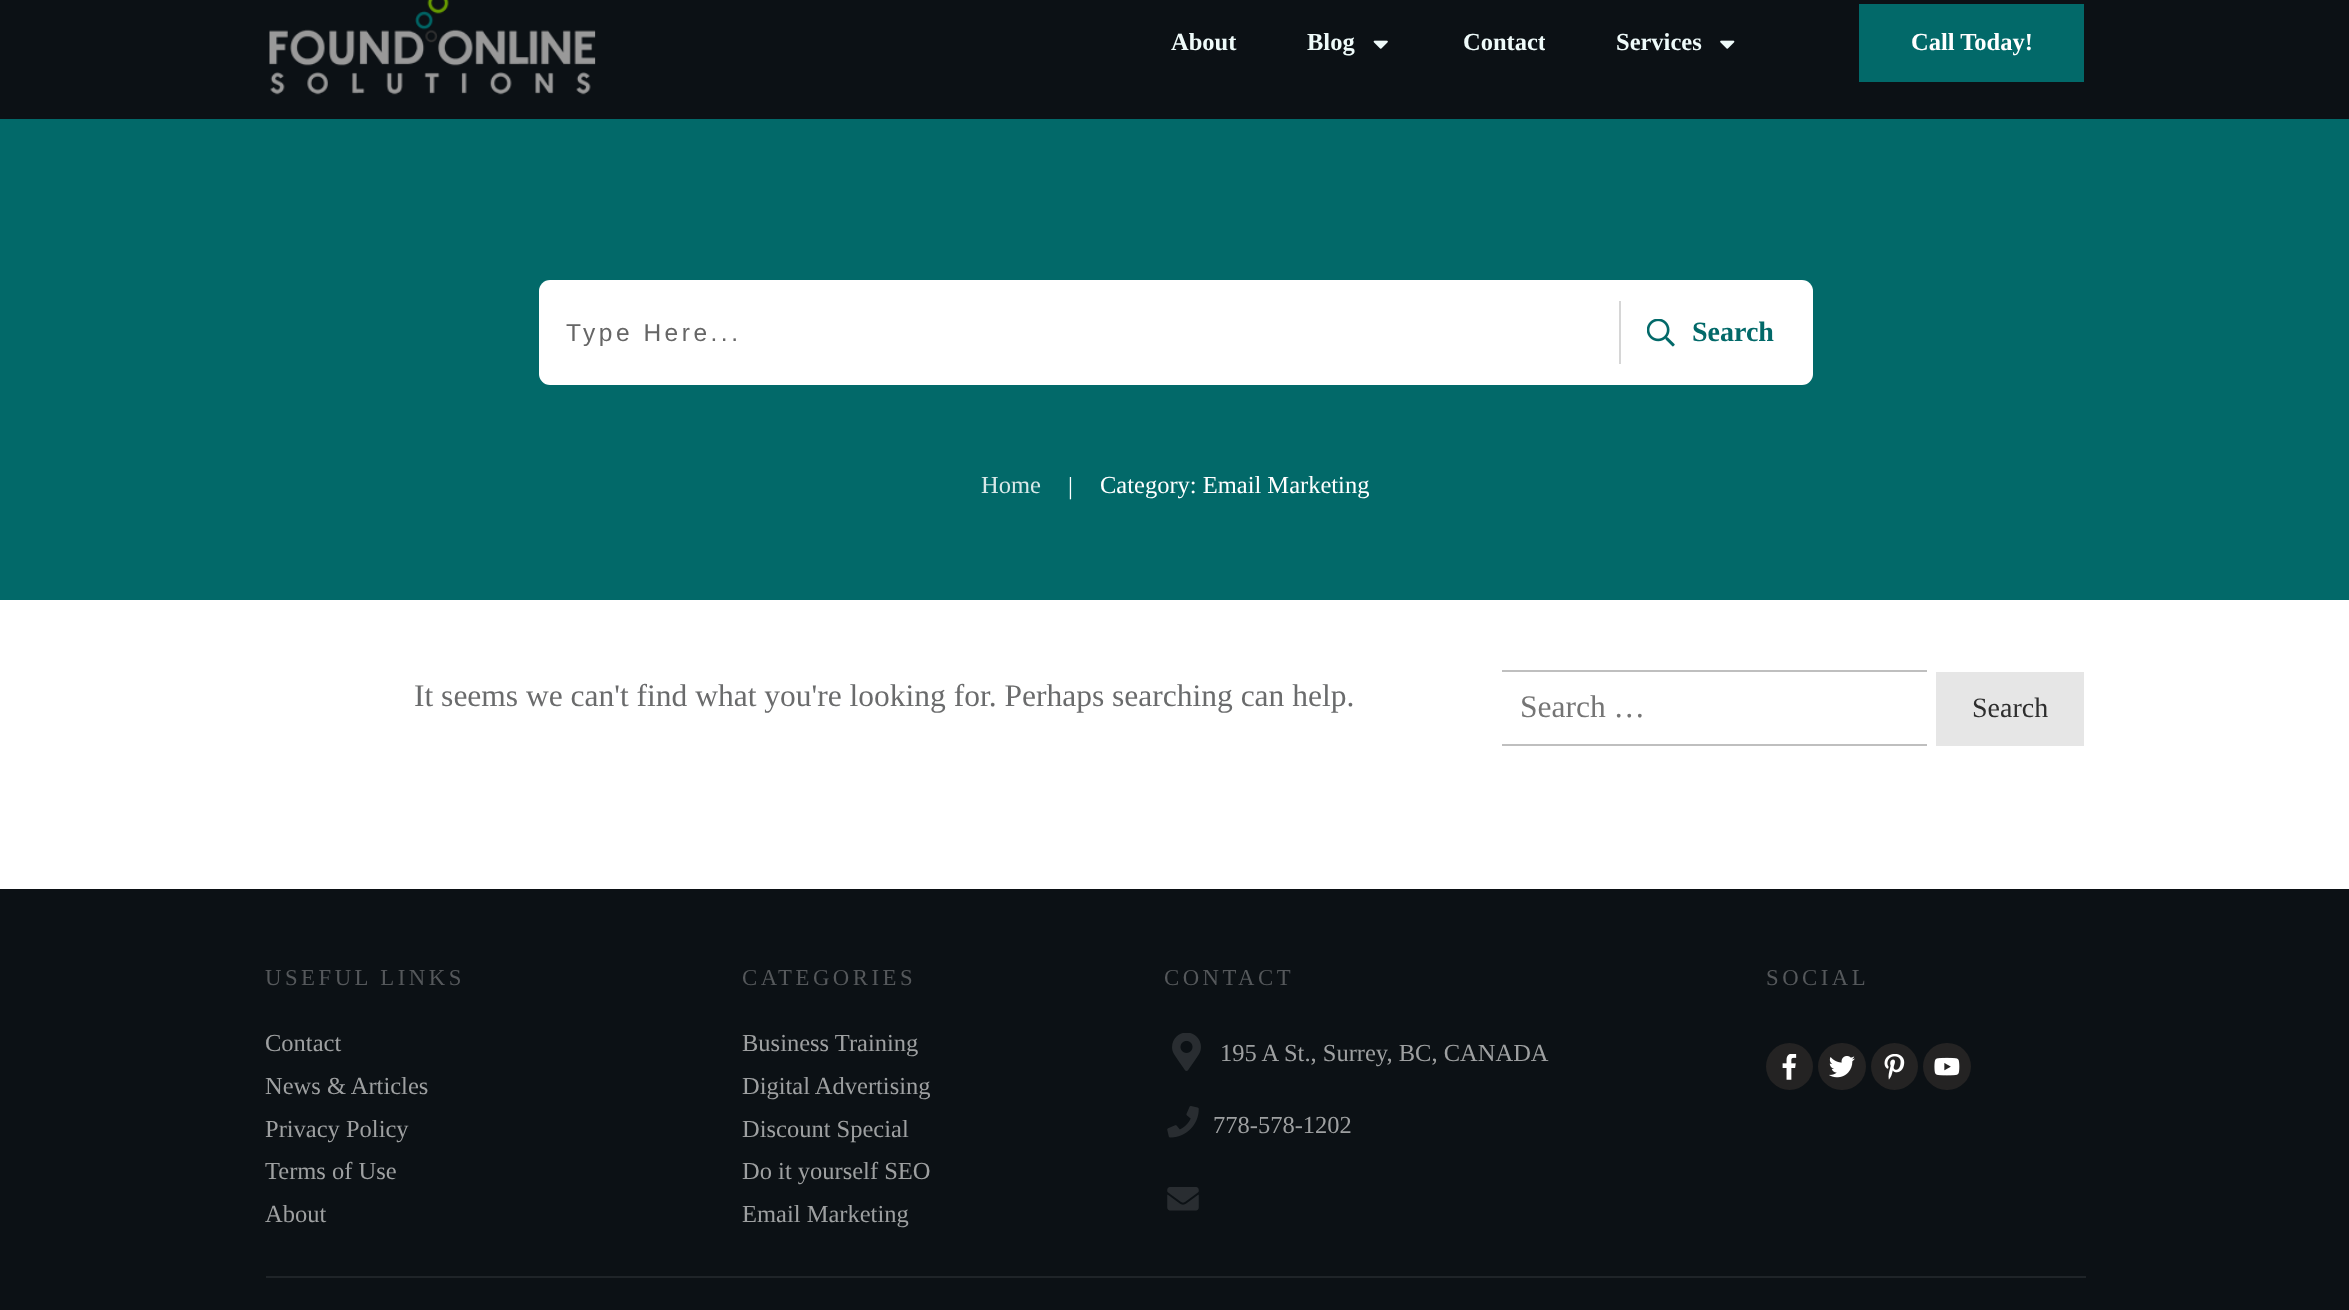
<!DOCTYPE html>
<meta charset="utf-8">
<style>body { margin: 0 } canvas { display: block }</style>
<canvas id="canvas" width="2349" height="1310"></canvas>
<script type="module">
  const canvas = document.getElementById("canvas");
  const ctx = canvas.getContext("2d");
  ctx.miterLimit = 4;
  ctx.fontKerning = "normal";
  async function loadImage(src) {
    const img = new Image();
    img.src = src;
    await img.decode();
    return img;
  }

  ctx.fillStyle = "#ffffff";
  ctx.fillRect(0, 0, 2349, 1310);
  ctx.fillStyle = "#0c1115";
  ctx.fillRect(0, 0, 2349, 119);
  ctx.drawImage(await loadImage("img1.png"), 269, 0, 327, 95);
  ctx.font = "bold 24.5px Liberation Serif";
  ctx.fillStyle = "#effbfa";
  ctx.fillText("About", 1171, 50);
  ctx.fillText("Blog", 1307, 50);
  ctx.drawImage(await loadImage("img2.png"), 1373, 40, 15, 9);
  ctx.save();
  ctx.beginPath();
  ctx.rect(1463, 19, 82, 49);
  ctx.clip();
  ctx.fillText("Contact", 1463, 50);
  ctx.restore();
  ctx.fillText("Services", 1616, 50);
  ctx.drawImage(await loadImage("img3.png"), 1720, 40, 15, 9);
  ctx.fillStyle = "#026969";
  ctx.fillRect(1859, 4, 225, 78);
  ctx.fillStyle = "#ffffff";
  ctx.fillText("Call Today!", 1911, 50);
  ctx.fillStyle = "#026969";
  ctx.fillRect(0, 119, 2349, 481);
  ctx.fillStyle = "#ffffff";
  ctx.beginPath();
  ctx.roundRect(539, 280, 1274, 105, 11);
  ctx.fill();
  ctx.letterSpacing = "3.5px";
  ctx.font = "24.5px Liberation Sans";
  ctx.fillStyle = "#666666";
  ctx.fillText("Type Here...", 566, 341);
  ctx.fillStyle = "#d6d6d6";
  ctx.fillRect(1619, 301, 2, 63);
  ctx.drawImage(await loadImage("img4.png"), 1647, 319, 28, 28);
  ctx.letterSpacing = "0px";
  ctx.font = "bold 28px Liberation Serif";
  ctx.fillStyle = "#026969";
  ctx.fillText("Search", 1692, 341);
  ctx.font = "24.5px Liberation Serif";
  ctx.fillStyle = "#d9e9e9";
  ctx.fillText("Home", 981, 493);
  ctx.fillStyle = "#ffffff";
  ctx.fillText("|", 1068, 494);
  ctx.fillText("Category: Email Marketing", 1100, 493);
  ctx.font = "31.5px Liberation Serif";
  ctx.fillStyle = "#6a6b6c";
  ctx.fillText("It seems we can't find what you're looking for. Perhaps searching can help.", 414, 706);
  ctx.fillStyle = "#bfbfbf";
  ctx.fillRect(1502, 670, 425, 2);
  ctx.fillRect(1502, 744, 425, 2);
  ctx.fillStyle = "#757575";
  ctx.fillText("Search …", 1520, 717);
  ctx.fillStyle = "#e6e6e6";
  ctx.fillRect(1936, 672, 148, 74);
  ctx.font = "28px Liberation Serif";
  ctx.fillStyle = "#2e2e2e";
  ctx.fillText("Search", 1972, 717);
  ctx.fillStyle = "#0c1115";
  ctx.fillRect(0, 889, 2349, 421);
  ctx.fillStyle = "#1f2428";
  ctx.fillRect(266, 1276, 1820, 2);
  ctx.letterSpacing = "3.5px";
  ctx.font = "22.75px Liberation Serif";
  ctx.fillStyle = "#55585b";
  ctx.fillText("USEFUL LINKS", 265, 985);
  ctx.letterSpacing = "0px";
  ctx.font = "24.5px Liberation Serif";
  ctx.fillStyle = "#9ea0a1";
  ctx.fillText("Contact", 265, 1051);
  ctx.fillText("News & Articles", 265, 1094);
  ctx.fillText("Privacy Policy", 265, 1137);
  ctx.fillText("Terms of Use", 265, 1179);
  ctx.fillText("About", 265, 1222);
  ctx.letterSpacing = "3.5px";
  ctx.font = "22.75px Liberation Serif";
  ctx.fillStyle = "#55585b";
  ctx.fillText("CATEGORIES", 742, 985);
  ctx.letterSpacing = "0px";
  ctx.font = "24.5px Liberation Serif";
  ctx.fillStyle = "#9ea0a1";
  ctx.fillText("Business Training", 742, 1051);
  ctx.fillText("Digital Advertising", 742, 1094);
  ctx.fillText("Discount Special", 742, 1137);
  ctx.fillText("Do it yourself SEO", 742, 1179);
  ctx.fillText("Email Marketing", 742, 1222);
  ctx.letterSpacing = "3.5px";
  ctx.font = "22.75px Liberation Serif";
  ctx.fillStyle = "#55585b";
  ctx.fillText("CONTACT", 1164, 985);
  ctx.drawImage(await loadImage("img5.png"), 1172, 1033, 29, 38);
  ctx.letterSpacing = "0px";
  ctx.font = "24.5px Liberation Serif";
  ctx.fillStyle = "#9ea0a1";
  ctx.fillText("195 A St., Surrey, BC, CANADA", 1220, 1061);
  ctx.drawImage(await loadImage("img6.png"), 1167, 1106, 32, 32);
  ctx.fillText("778-578-1202", 1213, 1133);
  ctx.drawImage(await loadImage("img7.png"), 1167, 1187, 32, 24);
  ctx.letterSpacing = "3.5px";
  ctx.font = "22.75px Liberation Serif";
  ctx.fillStyle = "#55585b";
  ctx.fillText("SOCIAL", 1766, 985);
  ctx.fillStyle = "#242323";
  ctx.beginPath();
  ctx.arc(1789.5, 1066.5, 23.5, 0, Math.PI * 2);
  ctx.fill();
  ctx.drawImage(await loadImage("img8.png"), 1782, 1054, 15, 26);
  ctx.beginPath();
  ctx.roundRect(1818, 1043, 48, 47, 23.5);
  ctx.fill();
  ctx.drawImage(await loadImage("img9.png"), 1829, 1056, 26, 22);
  ctx.beginPath();
  ctx.arc(1894.5, 1066.5, 23.5, 0, Math.PI * 2);
  ctx.fill();
  ctx.drawImage(await loadImage("img10.png"), 1884, 1054, 21, 26);
  ctx.beginPath();
  ctx.roundRect(1923, 1043, 48, 47, 23.5);
  ctx.fill();
  ctx.drawImage(await loadImage("img11.png"), 1934, 1057, 26, 19);
</script>
